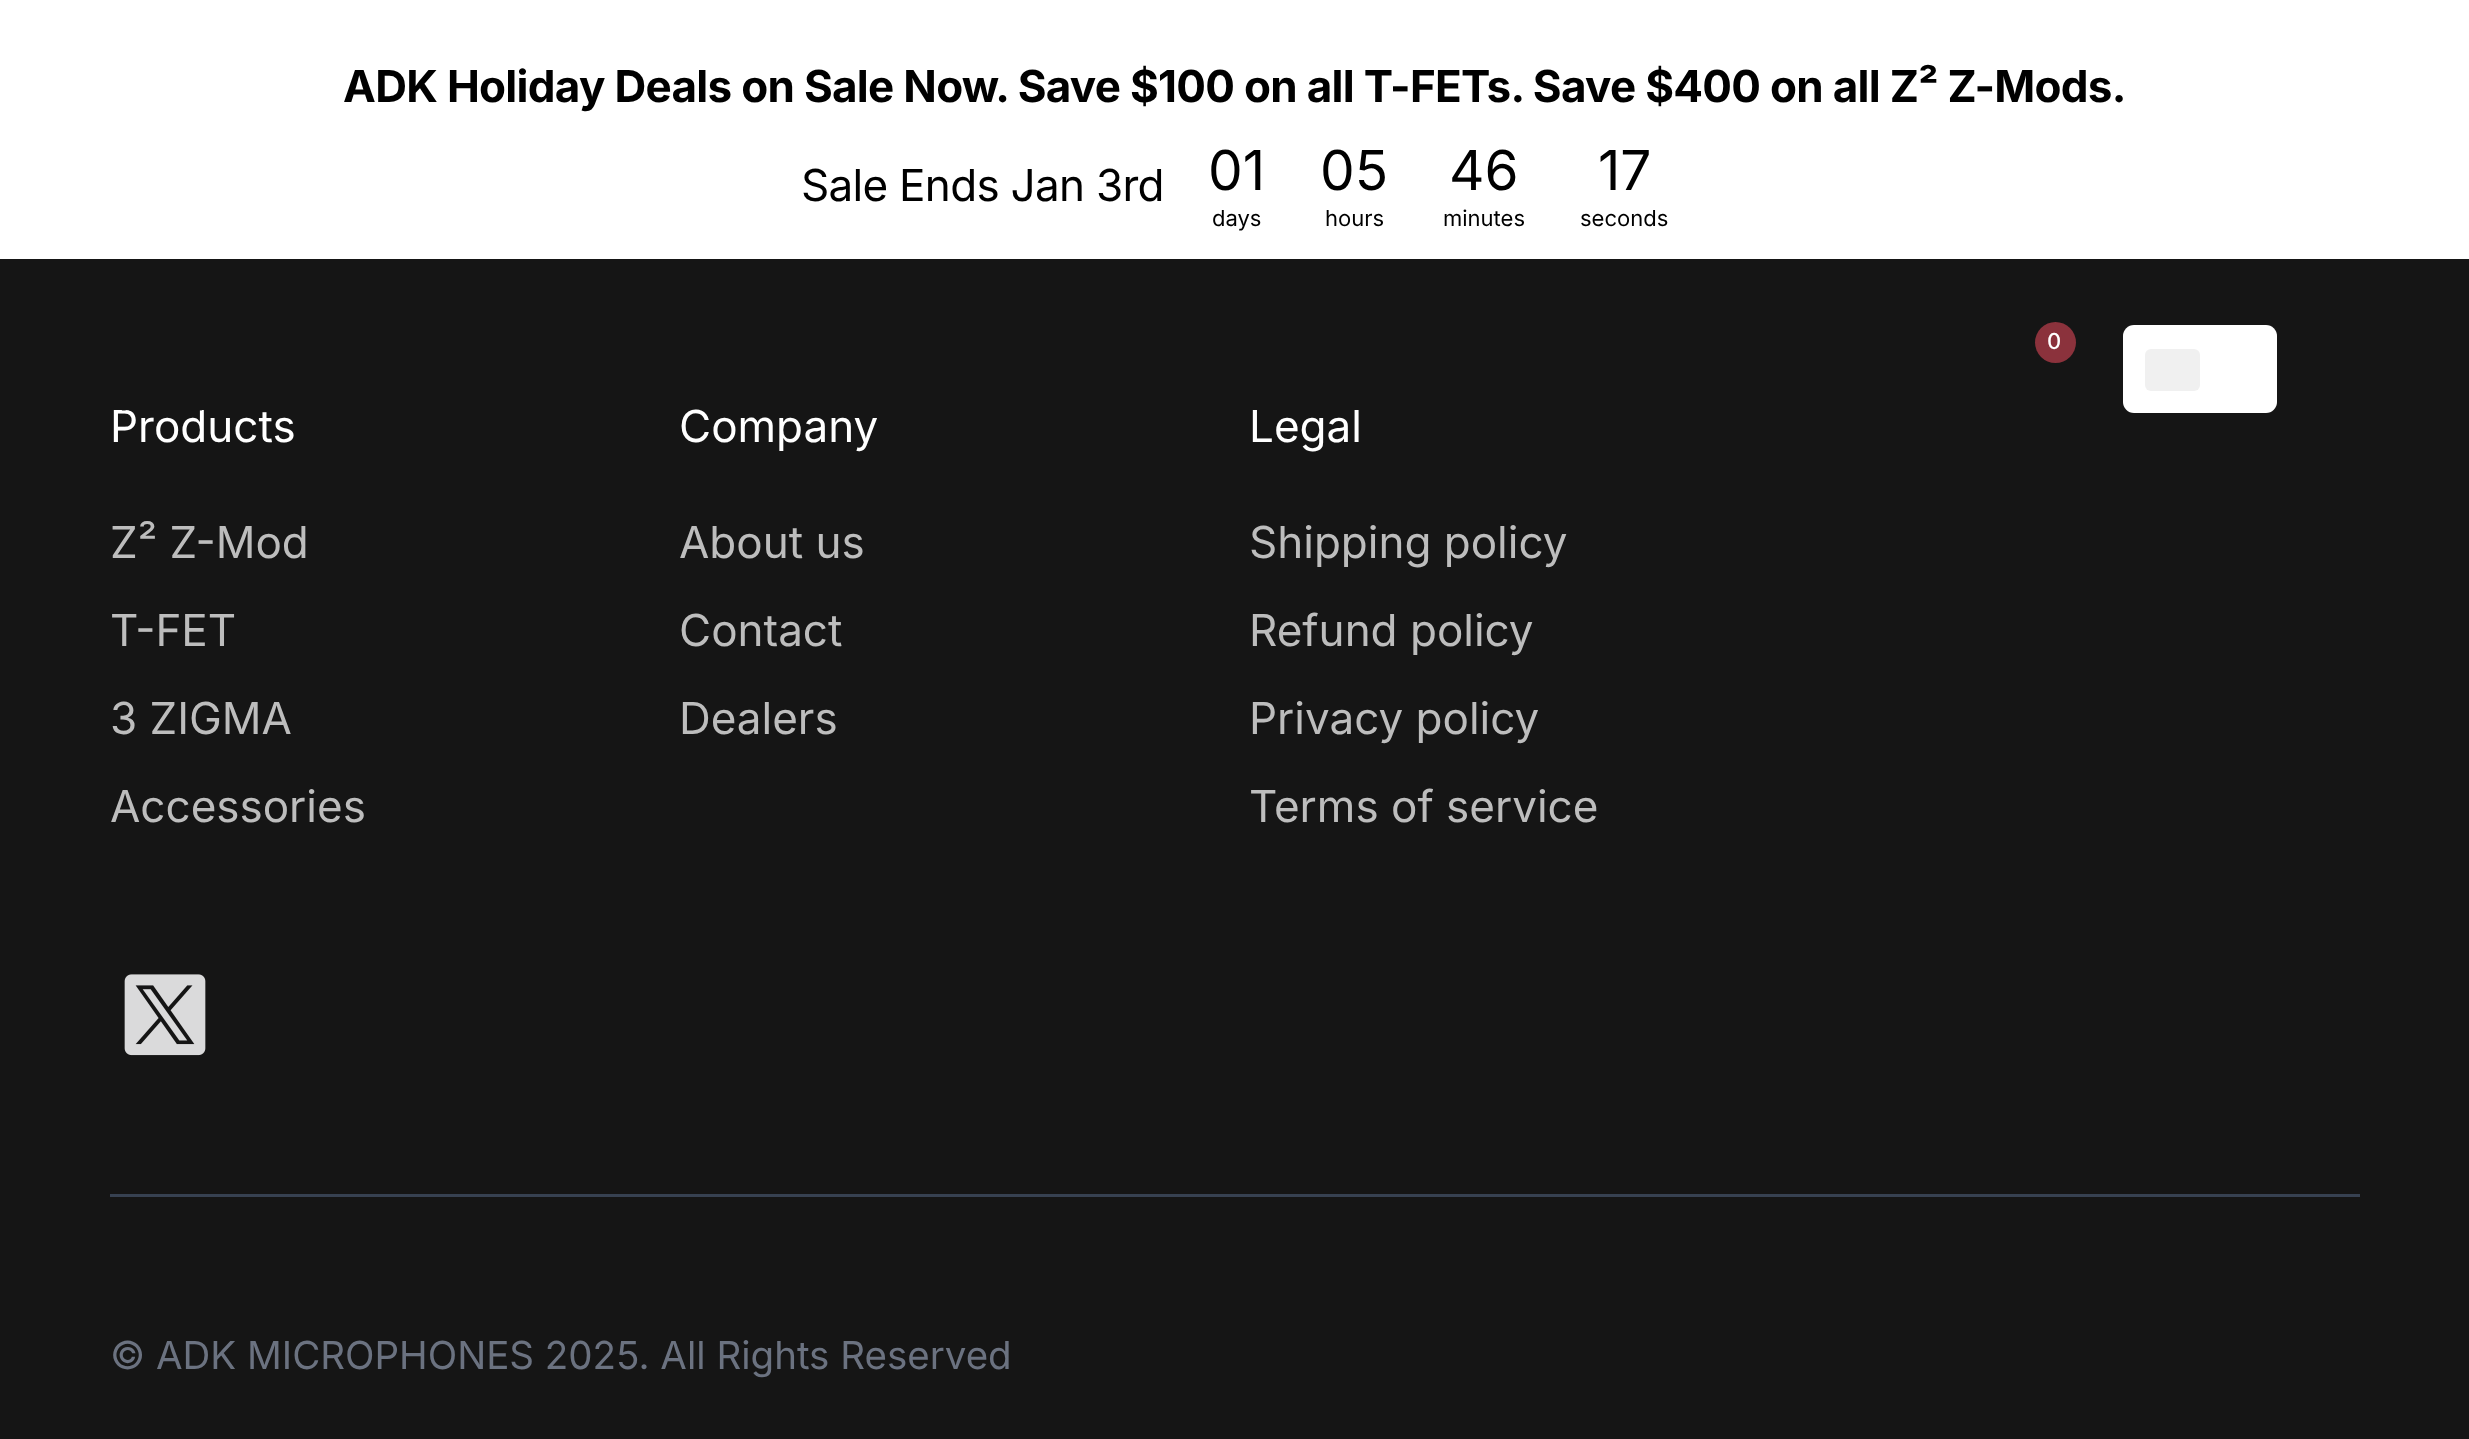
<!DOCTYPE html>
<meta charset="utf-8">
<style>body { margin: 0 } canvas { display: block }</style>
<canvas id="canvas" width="2469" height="1439"></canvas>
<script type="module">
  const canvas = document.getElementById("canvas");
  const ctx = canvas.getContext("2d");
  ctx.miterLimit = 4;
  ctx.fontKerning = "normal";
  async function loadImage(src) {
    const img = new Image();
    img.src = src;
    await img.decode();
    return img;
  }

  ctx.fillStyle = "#151515";
  ctx.fillRect(0, 0, 2469, 1439);
  ctx.fillStyle = "#ffffff";
  ctx.fillRect(0, 0, 2469, 259);
  ctx.letterSpacing = "-0.7px";
  ctx.font = "bold 44px Inter";
  ctx.fillStyle = "#000000";
  ctx.fillText("ADK Holiday Deals on Sale Now. Save $100 on all T-FETs. Save $400 on all Z² Z-Mods.", 343, 102);
  ctx.font = "44px Inter";
  ctx.fillText("Sale Ends Jan 3rd", 801, 201);
  ctx.letterSpacing = "0px";
  ctx.font = "55px Inter";
  ctx.fillText("01", 1208, 190);
  ctx.font = "22px Inter";
  ctx.fillText("days", 1212, 226);
  ctx.font = "55px Inter";
  ctx.fillText("05", 1320, 190);
  ctx.font = "22px Inter";
  ctx.fillText("hours", 1325, 226);
  ctx.font = "55px Inter";
  ctx.fillText("46", 1449, 190);
  ctx.font = "22px Inter";
  ctx.fillText("minutes", 1443, 226);
  ctx.font = "55px Inter";
  ctx.fillText("17", 1598, 190);
  ctx.font = "22px Inter";
  ctx.fillText("seconds", 1580, 226);
  ctx.fillStyle = "#8b323c";
  ctx.beginPath();
  ctx.arc(2055.5, 342.5, 20.5, 0, Math.PI * 2);
  ctx.fill();
  ctx.font = "500 22px Inter";
  ctx.fillStyle = "#ffffff";
  ctx.fillText("0", 2047, 349);
  ctx.beginPath();
  ctx.roundRect(2123, 325, 154, 88, 11);
  ctx.fill();
  ctx.fillStyle = "#f0f0f0";
  ctx.beginPath();
  ctx.roundRect(2145, 349, 55, 42, 6);
  ctx.fill();
  ctx.font = "44px Inter";
  ctx.fillStyle = "#ffffff";
  ctx.fillText("Products", 110, 442);
  ctx.drawImage(await loadImage("img1.png"), 121, 410, 81, 1);
  ctx.fillStyle = "#bdbdbd";
  ctx.fillText("Z² Z-Mod", 110, 558);
  ctx.fillText("T-FET", 110, 646);
  ctx.fillText("3 ZIGMA", 110, 734);
  ctx.fillText("Accessories", 110, 822);
  ctx.fillStyle = "#ffffff";
  ctx.fillText("Company", 679, 442);
  ctx.fillStyle = "#bdbdbd";
  ctx.fillText("About us", 679, 558);
  ctx.fillText("Contact", 679, 646);
  ctx.fillText("Dealers", 679, 734);
  ctx.fillStyle = "#ffffff";
  ctx.fillText("Legal", 1249, 442);
  ctx.fillStyle = "#bdbdbd";
  ctx.fillText("Shipping policy", 1249, 558);
  ctx.fillText("Refund policy", 1249, 646);
  ctx.fillText("Privacy policy", 1249, 734);
  ctx.fillText("Terms of service", 1249, 822);
  ctx.drawImage(await loadImage("img2.png"), 124, 974, 82, 82);
  ctx.fillStyle = "#374151";
  ctx.fillRect(110, 1194, 2250, 3);
  ctx.font = "38.5px Inter";
  ctx.fillStyle = "#6b7280";
  ctx.fillText("© ADK MICROPHONES 2025. All Rights Reserved", 110, 1369);
</script>
